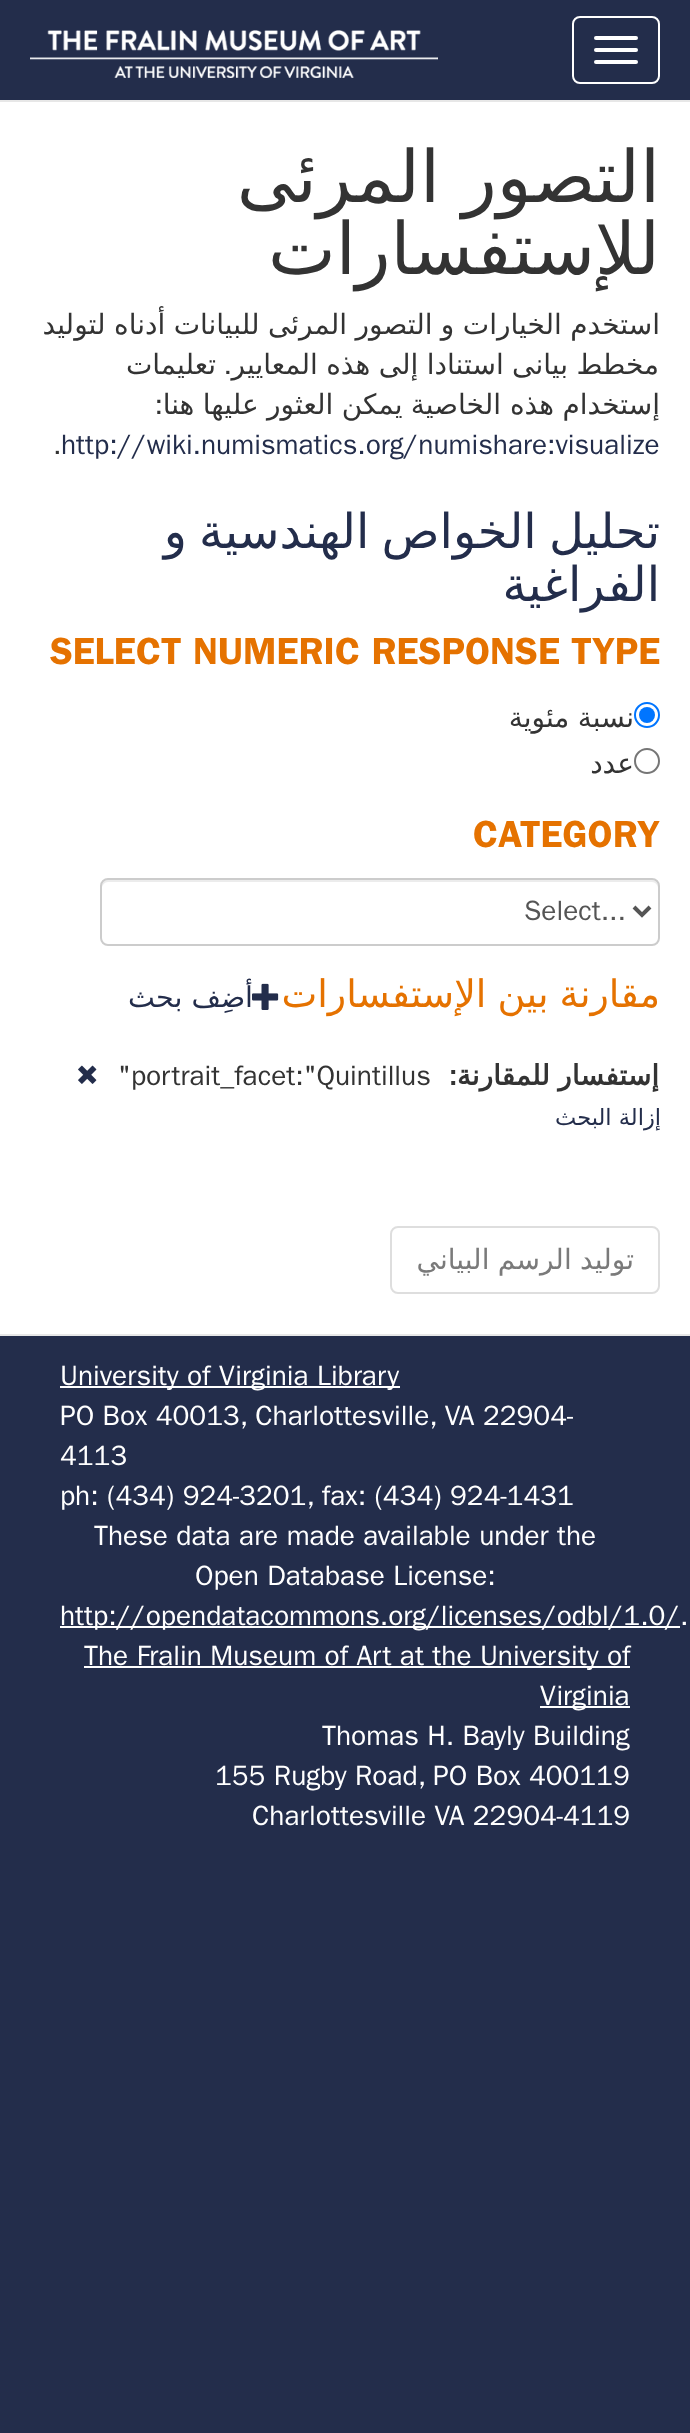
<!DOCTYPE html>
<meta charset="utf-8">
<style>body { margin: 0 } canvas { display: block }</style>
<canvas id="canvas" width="690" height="2433"></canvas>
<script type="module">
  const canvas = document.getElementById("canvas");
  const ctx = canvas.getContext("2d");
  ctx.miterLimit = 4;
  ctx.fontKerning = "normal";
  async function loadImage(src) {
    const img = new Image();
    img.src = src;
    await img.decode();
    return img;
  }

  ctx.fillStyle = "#232d4b";
  ctx.fillRect(0, 0, 690, 2433);
  ctx.fillStyle = "#ffffff";
  ctx.fillRect(0, 102, 690, 1232);
  ctx.fillStyle = "#e7e7e7";
  ctx.fillRect(0, 100, 690, 2);
  ctx.drawImage(await loadImage("img1.png"), 30, 30, 408, 48);
  ctx.beginPath();
  ctx.roundRect(573, 17, 86, 66, 7);
  ctx.strokeStyle = "#ffffff";
  ctx.lineWidth = 2;
  ctx.stroke();
  ctx.fillStyle = "#ffffff";
  ctx.beginPath();
  ctx.roundRect(594, 36, 44, 4, 2);
  ctx.fill();
  ctx.beginPath();
  ctx.roundRect(594, 48, 44, 4, 2);
  ctx.fill();
  ctx.beginPath();
  ctx.roundRect(594, 60, 44, 4, 2);
  ctx.fill();
  ctx.wordSpacing = "-1px";
  ctx.direction = "rtl";
  ctx.font = "72px DejaVu Sans";
  ctx.fillStyle = "#333333";
  ctx.fillText("التصور المرئى", 660, 202);
  ctx.wordSpacing = "0px";
  ctx.fillText("للإستفسارات", 660, 274);
  ctx.wordSpacing = "-0.5px";
  ctx.font = "28px DejaVu Sans";
  ctx.fillText("استخدم الخيارات و التصور المرئى للبيانات أدناه لتوليد", 660, 334);
  ctx.wordSpacing = "0px";
  ctx.fillText("تعليمات", 216, 374);
  ctx.font = "28px 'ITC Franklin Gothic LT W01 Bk'";
  ctx.fillText(".", 232, 374);
  ctx.wordSpacing = "-0.5px";
  ctx.font = "28px DejaVu Sans";
  ctx.fillText("مخطط بيانى استنادا إلى هذه المعايير", 659, 374);
  ctx.wordSpacing = "0px";
  ctx.font = "28px 'ITC Franklin Gothic LT W01 Bk'";
  ctx.fillText(":", 163, 414);
  ctx.wordSpacing = "-0.5px";
  ctx.font = "28px DejaVu Sans";
  ctx.fillText("الخاصية يمكن العثور عليها هنا", 501, 414);
  ctx.fillText("إستخدام هذه", 660, 414);
  ctx.wordSpacing = "0px";
  ctx.direction = "ltr";
  ctx.font = "28px 'ITC Franklin Gothic LT W01 Bk'";
  ctx.fillText(".", 53, 454);
  ctx.fillStyle = "#232d4b";
  ctx.fillText("http://wiki.numismatics.org/numishare:visualize", 61, 454);
  ctx.wordSpacing = "-3px";
  ctx.direction = "rtl";
  ctx.font = "48px DejaVu Sans";
  ctx.fillText("تحليل الخواص الهندسية و", 660, 548);
  ctx.wordSpacing = "0px";
  ctx.fillText("الفراغية", 660, 601);
  ctx.direction = "ltr";
  ctx.font = "600 38px 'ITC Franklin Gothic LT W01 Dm'";
  ctx.fillStyle = "#e57200";
  ctx.fillText("SELECT NUMERIC RESPONSE TYPE", 50, 664);
  ctx.wordSpacing = "-0.5px";
  ctx.direction = "rtl";
  ctx.font = "28px DejaVu Sans";
  ctx.fillStyle = "#333333";
  ctx.fillText("نسبة مئوية", 634, 727);
  ctx.beginPath();
  ctx.arc(647, 715, 12, 0, Math.PI * 2);
  ctx.strokeStyle = "#0075ff";
  ctx.stroke();
  ctx.fillStyle = "#0075ff";
  ctx.beginPath();
  ctx.arc(647, 715, 8, 0, Math.PI * 2);
  ctx.fill();
  ctx.wordSpacing = "0px";
  ctx.fillStyle = "#333333";
  ctx.fillText("عدد", 634, 773);
  ctx.beginPath();
  ctx.arc(647, 761, 12, 0, Math.PI * 2);
  ctx.strokeStyle = "#767676";
  ctx.stroke();
  ctx.direction = "ltr";
  ctx.font = "600 38px 'ITC Franklin Gothic LT W01 Dm'";
  ctx.fillStyle = "#e57200";
  ctx.fillText("CATEGORY", 473, 847);
  ctx.fillStyle = "#ececec";
  ctx.beginPath();
  ctx.moveTo(108, 882);
  ctx.lineTo(652, 882);
  ctx.bezierCurveTo(655, 882, 658, 885, 658, 888);
  ctx.lineTo(658, 886);
  ctx.bezierCurveTo(658, 883, 655, 880, 652, 880);
  ctx.lineTo(108, 880);
  ctx.bezierCurveTo(105, 880, 102, 883, 102, 886);
  ctx.lineTo(102, 888);
  ctx.bezierCurveTo(102, 885, 105, 882, 108, 882);
  ctx.closePath();
  ctx.fill();
  ctx.beginPath();
  ctx.roundRect(101, 879, 558, 66, 7);
  ctx.strokeStyle = "#cccccc";
  ctx.stroke();
  ctx.beginPath();
  ctx.moveTo(634, 907);
  ctx.lineTo(642, 915);
  ctx.lineTo(650, 907);
  ctx.strokeStyle = "#555555";
  ctx.lineWidth = 4;
  ctx.stroke();
  ctx.font = "28px 'ITC Franklin Gothic LT W01 Bk'";
  ctx.fillStyle = "#555555";
  ctx.fillText("Select...", 524, 920);
  ctx.direction = "rtl";
  ctx.font = "28.5px DejaVu Sans";
  ctx.fillStyle = "#232d4b";
  ctx.fillText("أضِف بحث", 253, 1007);
  ctx.drawImage(await loadImage("img2.png"), 252, 983, 27, 27);
  ctx.wordSpacing = "-1px";
  ctx.font = "38px DejaVu Sans";
  ctx.fillStyle = "#e57200";
  ctx.fillText("مقارنة بين الإستفسارات", 660, 1007);
  ctx.wordSpacing = "0px";
  ctx.direction = "ltr";
  ctx.font = "28px 'ITC Franklin Gothic LT W01 Bk'";
  ctx.fillStyle = "#333333";
  ctx.fillText("\"portrait_facet:\"Quintillus", 118, 1085);
  ctx.direction = "rtl";
  ctx.font = "bold 28px 'ITC Franklin Gothic LT W01 Bk'";
  ctx.fillText(":", 457, 1085);
  ctx.wordSpacing = "-0.5px";
  ctx.font = "bold 28px DejaVu Sans";
  ctx.fillText("إستفسار للمقارنة", 659, 1085);
  ctx.drawImage(await loadImage("img3.png"), 78, 1065, 19, 19);
  ctx.wordSpacing = "0px";
  ctx.font = "22.5px DejaVu Sans";
  ctx.fillStyle = "#232d4b";
  ctx.fillText("إزالة البحث", 661, 1125);
  ctx.beginPath();
  ctx.roundRect(391, 1227, 268, 66, 7);
  ctx.strokeStyle = "#dedede";
  ctx.lineWidth = 2;
  ctx.stroke();
  ctx.wordSpacing = "-0.5px";
  ctx.font = "28px DejaVu Sans";
  ctx.fillStyle = "#7a7a7a";
  ctx.fillText("توليد الرسم البياني", 634, 1269);
  ctx.fillStyle = "#e7e7e7";
  ctx.fillRect(0, 1334, 690, 2);
  ctx.fillStyle = "#ffffff";
  ctx.fillRect(60, 1386, 340, 2);
  ctx.wordSpacing = "0px";
  ctx.direction = "ltr";
  ctx.font = "28px 'ITC Franklin Gothic LT W01 Bk'";
  ctx.fillText("University of Virginia Library", 60, 1385);
  ctx.fillText("PO Box 40013, Charlottesville, VA 22904-", 60, 1425);
  ctx.fillText("4113", 60, 1465);
  ctx.fillText("ph: (434) 924-3201, fax: (434) 924-1431", 60, 1505);
  ctx.fillText("These data are made available under the", 94, 1545);
  ctx.fillText("Open Database License:", 195, 1585);
  ctx.fillRect(60, 1626, 620, 2);
  ctx.fillText("http://opendatacommons.org/licenses/odbl/1.0/.", 60, 1625);
  ctx.fillRect(84, 1666, 546, 2);
  ctx.fillText("The Fralin Museum of Art at the University of", 84, 1665);
  ctx.fillRect(540, 1706, 90, 2);
  ctx.fillText("Virginia", 540, 1705);
  ctx.fillText("Thomas H. Bayly Building", 322, 1745);
  ctx.fillText("155 Rugby Road, PO Box 400119", 215, 1785);
  ctx.fillText("Charlottesville VA 22904-4119", 252, 1825);
</script>
